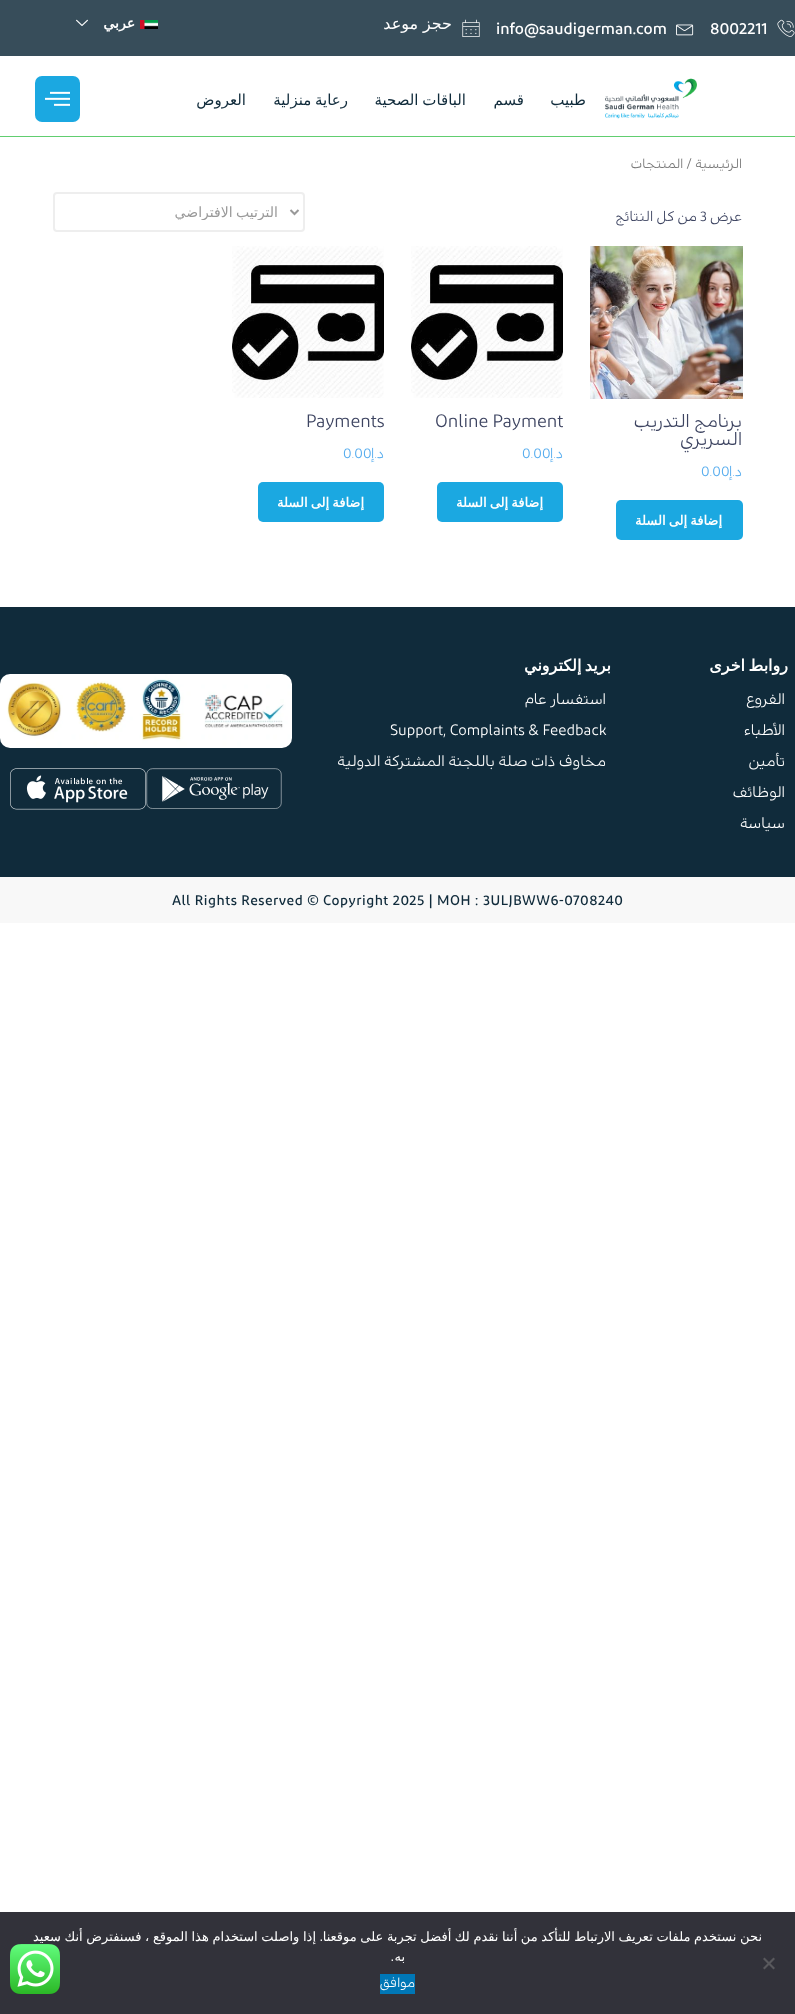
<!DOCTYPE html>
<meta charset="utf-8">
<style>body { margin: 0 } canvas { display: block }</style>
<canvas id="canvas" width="795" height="2014"></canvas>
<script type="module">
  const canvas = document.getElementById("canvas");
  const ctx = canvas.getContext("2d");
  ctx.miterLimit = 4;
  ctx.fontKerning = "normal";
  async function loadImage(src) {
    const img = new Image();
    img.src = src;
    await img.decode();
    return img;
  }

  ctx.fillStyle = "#ffffff";
  ctx.fillRect(0, 0, 795, 2014);
  ctx.fillStyle = "#374d5a";
  ctx.fillRect(0, 0, 795, 56);
  ctx.drawImage(await loadImage("img1.png"), 777, 19, 18, 18);
  ctx.font = "500 16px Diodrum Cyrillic";
  ctx.fillStyle = "#ffffff";
  ctx.fillText("8002211", 710, 34);
  ctx.drawImage(await loadImage("img2.png"), 676, 24, 18, 12);
  ctx.fillText("info@saudigerman.com", 496, 34);
  ctx.drawImage(await loadImage("img3.png"), 462, 19, 18, 18);
  ctx.letterSpacing = "-0.25px";
  ctx.direction = "rtl";
  ctx.font = "16px DejaVu Sans";
  ctx.fillText("حجز موعد", 452, 29);
  ctx.drawImage(await loadImage("img4.png"), 140, 20, 18, 9);
  ctx.letterSpacing = "0px";
  ctx.font = "bold 14px DejaVu Sans";
  ctx.fillText("عربي", 135, 28);
  ctx.drawImage(await loadImage("img5.png"), 76, 19, 12, 7);
  ctx.fillStyle = "#61ce70";
  ctx.fillRect(0, 136, 795, 1);
  ctx.drawImage(await loadImage("img6.png"), 605, 78, 92, 41);
  ctx.font = "15px DejaVu Sans";
  ctx.fillStyle = "#102b3b";
  ctx.fillText("طبيب", 586, 105);
  ctx.fillText("قسم", 524, 105);
  ctx.wordSpacing = "-1px";
  ctx.fillText("الباقات الصحية", 466, 105);
  ctx.fillText("رعاية منزلية", 348, 105);
  ctx.wordSpacing = "0px";
  ctx.fillText("العروض", 246, 105);
  ctx.fillStyle = "#1ba8e1";
  ctx.beginPath();
  ctx.roundRect(35, 76, 45, 46, 7);
  ctx.fill();
  ctx.drawImage(await loadImage("img7.png"), 45, 91, 25, 15);
  ctx.font = "13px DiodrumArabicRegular";
  ctx.fillStyle = "#767676";
  ctx.fillText("الرئيسية", 742, 168);
  ctx.fillText("/ المنتجات", 692, 168);
  ctx.font = "14px DiodrumArabicRegular";
  ctx.fillStyle = "#3d4461";
  ctx.fillText("عرض", 742, 221);
  ctx.direction = "ltr";
  ctx.fillText("3", 700, 221);
  ctx.direction = "rtl";
  ctx.fillText("من كل النتائج", 697, 221);
  ctx.beginPath();
  ctx.roundRect(54, 193, 250, 38, 3);
  ctx.strokeStyle = "#eeeeee";
  ctx.lineWidth = 2;
  ctx.stroke();
  ctx.beginPath();
  ctx.moveTo(290.5, 210);
  ctx.lineTo(294.5, 214);
  ctx.lineTo(298.5, 210);
  ctx.strokeStyle = "#999999";
  ctx.stroke();
  ctx.save();
  ctx.beginPath();
  ctx.rect(91, 204, 188, 16);
  ctx.clip();
  ctx.wordSpacing = "-1px";
  ctx.font = "14px DejaVu Sans";
  ctx.fillStyle = "#999999";
  ctx.fillText("الترتيب الافتراضي", 278, 217);
  ctx.restore();
  ctx.drawImage(await loadImage("img8.png"), 590, 246, 153, 153);
  ctx.font = "18px DiodrumArabicRegular";
  ctx.fillText("برنامج التدريب", 742, 427);
  ctx.fillText("السريري", 742, 445);
  ctx.font = "14px DiodrumArabicRegular";
  ctx.fillStyle = "#55acee";
  ctx.fillText("د.إ", 742, 476);
  ctx.direction = "ltr";
  ctx.fillText("0.00", 701, 476);
  ctx.fillStyle = "#1ba8e1";
  ctx.beginPath();
  ctx.roundRect(616, 500, 127, 40, 5);
  ctx.fill();
  ctx.wordSpacing = "-1px";
  ctx.direction = "rtl";
  ctx.font = "bold 13px DejaVu Sans";
  ctx.fillStyle = "#ffffff";
  ctx.fillText("إضافة إلى السلة", 722, 525);
  ctx.drawImage(await loadImage("img9.png"), 411, 246, 152, 152);
  ctx.wordSpacing = "0px";
  ctx.direction = "ltr";
  ctx.font = "18px DiodrumArabicRegular";
  ctx.fillStyle = "#3d4461";
  ctx.fillText("Online Payment", 435, 427);
  ctx.direction = "rtl";
  ctx.font = "14px DiodrumArabicRegular";
  ctx.fillStyle = "#55acee";
  ctx.fillText("د.إ", 563, 458);
  ctx.direction = "ltr";
  ctx.fillText("0.00", 522, 458);
  ctx.fillStyle = "#1ba8e1";
  ctx.beginPath();
  ctx.roundRect(437, 482, 126, 40, 5);
  ctx.fill();
  ctx.wordSpacing = "-1px";
  ctx.direction = "rtl";
  ctx.font = "bold 13px DejaVu Sans";
  ctx.fillStyle = "#ffffff";
  ctx.fillText("إضافة إلى السلة", 543, 507);
  ctx.drawImage(await loadImage("img10.png"), 232, 246, 152, 152);
  ctx.wordSpacing = "0px";
  ctx.direction = "ltr";
  ctx.font = "18px DiodrumArabicRegular";
  ctx.fillStyle = "#3d4461";
  ctx.fillText("Payments", 306, 427);
  ctx.direction = "rtl";
  ctx.font = "14px DiodrumArabicRegular";
  ctx.fillStyle = "#55acee";
  ctx.fillText("د.إ", 384, 458);
  ctx.direction = "ltr";
  ctx.fillText("0.00", 343, 458);
  ctx.fillStyle = "#1ba8e1";
  ctx.beginPath();
  ctx.roundRect(258, 482, 126, 40, 5);
  ctx.fill();
  ctx.wordSpacing = "-1px";
  ctx.direction = "rtl";
  ctx.font = "bold 13px DejaVu Sans";
  ctx.fillStyle = "#ffffff";
  ctx.fillText("إضافة إلى السلة", 364, 507);
  ctx.fillStyle = "#102b3b";
  ctx.fillRect(0, 607, 795, 270);
  ctx.letterSpacing = "0.4px";
  ctx.wordSpacing = "-2px";
  ctx.font = "bold 16px DejaVu Sans";
  ctx.fillStyle = "#ffffff";
  ctx.fillText("روابط اخرى", 788, 671);
  ctx.letterSpacing = "0px";
  ctx.wordSpacing = "0px";
  ctx.font = "15px DiodrumArabicRegular";
  ctx.fillText("الفروع", 785, 704);
  ctx.fillText("الأطباء", 785, 735);
  ctx.fillText("تأمين", 785, 766);
  ctx.fillText("الوظائف", 785, 797);
  ctx.fillText("سياسة", 785, 828);
  ctx.letterSpacing = "0.4px";
  ctx.wordSpacing = "-2px";
  ctx.font = "bold 16px DejaVu Sans";
  ctx.fillText("بريد إلكتروني", 611, 671);
  ctx.letterSpacing = "0px";
  ctx.wordSpacing = "0px";
  ctx.font = "15px DiodrumArabicRegular";
  ctx.fillText("استفسار عام", 606, 704);
  ctx.direction = "ltr";
  ctx.fillText("Support, Complaints & Feedback", 390, 735);
  ctx.direction = "rtl";
  ctx.fillText("مخاوف ذات صلة باللجنة المشتركة الدولية", 606, 766);
  ctx.drawImage(await loadImage("img11.png"), 0, 674, 292, 74);
  ctx.drawImage(await loadImage("img12.png"), 146, 768, 136, 41);
  ctx.drawImage(await loadImage("img13.png"), 10, 768, 136, 42);
  ctx.fillStyle = "#f8f8f8";
  ctx.fillRect(0, 877, 795, 46);
  ctx.letterSpacing = "0.5px";
  ctx.direction = "ltr";
  ctx.font = "500 14px Diodrum Cyrillic";
  ctx.fillStyle = "#102b3b";
  ctx.fillText("All Rights Reserved © Copyright 2025 | MOH : 3ULJBWW6-0708240", 172, 905);
  ctx.fillStyle = "#32323a";
  ctx.fillRect(0, 1912, 795, 102);
  ctx.fillStyle = "#59595d";
  ctx.beginPath();
  ctx.moveTo(773.5, 1957.5);
  ctx.lineTo(775, 1959);
  ctx.lineTo(764.5, 1969.5);
  ctx.lineTo(763, 1968);
  ctx.closePath();
  ctx.fill();
  ctx.beginPath();
  ctx.moveTo(763, 1959);
  ctx.lineTo(764.5, 1957.5);
  ctx.lineTo(775, 1968);
  ctx.lineTo(773.5, 1969.5);
  ctx.closePath();
  ctx.fill();
  ctx.letterSpacing = "0px";
  ctx.wordSpacing = "-0.5px";
  ctx.direction = "rtl";
  ctx.font = "13px DejaVu Sans";
  ctx.fillStyle = "#ffffff";
  ctx.fillText("نحن نستخدم ملفات تعريف الارتباط للتأكد من أننا نقدم لك أفضل تجربة على موقعنا", 762, 1941);
  ctx.wordSpacing = "0px";
  ctx.font = "13px Liberation Sans";
  ctx.fillText(".", 323, 1941);
  ctx.wordSpacing = "-0.5px";
  ctx.font = "13px DejaVu Sans";
  ctx.fillText("إذا واصلت استخدام هذا الموقع ، فسنفترض أنك سعيد", 316, 1941);
  ctx.wordSpacing = "0px";
  ctx.fillText("به", 405, 1961);
  ctx.font = "13px Liberation Sans";
  ctx.fillText(".", 394, 1961);
  ctx.fillStyle = "#0077b6";
  ctx.fillRect(380, 1974, 35, 20);
  ctx.font = "13px DiodrumArabicRegular";
  ctx.fillStyle = "#ffffff";
  ctx.fillText("موافق", 415, 1987);
  ctx.drawImage(await loadImage("img14.png"), 10, 1944, 50, 50);
</script>
